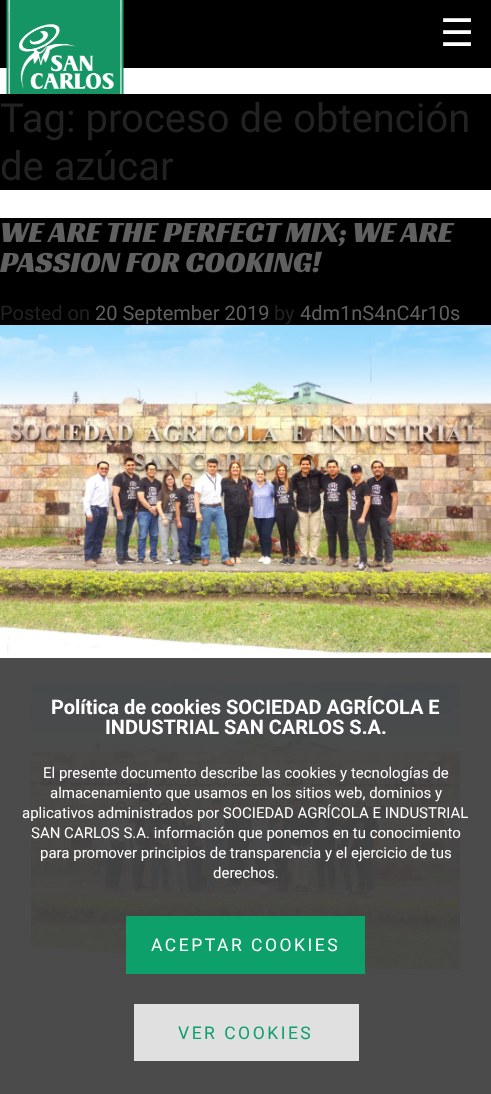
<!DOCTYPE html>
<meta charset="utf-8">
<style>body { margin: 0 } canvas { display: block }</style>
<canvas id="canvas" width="491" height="1094"></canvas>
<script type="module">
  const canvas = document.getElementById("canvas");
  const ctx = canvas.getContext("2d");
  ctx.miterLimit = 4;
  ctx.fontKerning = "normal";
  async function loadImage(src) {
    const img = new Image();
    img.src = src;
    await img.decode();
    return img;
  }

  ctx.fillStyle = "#ffffff";
  ctx.fillRect(0, 0, 491, 1094);
  ctx.fillStyle = "#4b4b4b";
  ctx.fillRect(0, 658, 491, 436);
  ctx.fillStyle = "#000000";
  ctx.fillRect(0, 0, 491, 68);
  ctx.drawImage(await loadImage("img1.png"), 6, 0, 118, 94);
  ctx.font = "38px DejaVu Sans";
  ctx.fillStyle = "#ffffff";
  ctx.fillText("☰", 440, 46);
  ctx.fillStyle = "#000000";
  ctx.fillRect(0, 94, 491, 96);
  ctx.font = "40px Roboto";
  ctx.fillStyle = "#222222";
  ctx.fillText("Tag: proceso de obtención", 0, 132);
  ctx.fillText("de azúcar", 0, 180);
  ctx.fillStyle = "#000000";
  ctx.fillRect(0, 218, 491, 107);
  ctx.font = "30px Racing Sans One";
  ctx.fillStyle = "#606060";
  ctx.fillText("WE ARE THE PERFECT MIX; WE ARE", 0, 242);
  ctx.fillText("PASSION FOR COOKING!", 0, 272);
  ctx.font = "20px Roboto";
  ctx.fillStyle = "#222222";
  ctx.fillText("Posted on", 0, 320);
  ctx.fillStyle = "#606060";
  ctx.fillText("20 September 2019", 95, 320);
  ctx.fillStyle = "#222222";
  ctx.fillText("by", 274, 320);
  ctx.fillStyle = "#606060";
  ctx.fillText("4dm1nS4nC4r10s", 300, 320);
  ctx.drawImage(await loadImage("img2.png"), 0, 325, 491, 328);
  ctx.drawImage(await loadImage("img3.png"), 31, 682, 429, 287);
  ctx.font = "bold 20px Roboto";
  ctx.fillStyle = "#ffffff";
  ctx.fillText("Política de cookies SOCIEDAD AGRÍCOLA E", 51, 714);
  ctx.fillText("INDUSTRIAL SAN CARLOS S.A.", 105, 734);
  ctx.font = "15px Roboto";
  ctx.fillText("El presente documento describe las cookies y tecnologías de", 43, 778);
  ctx.fillText("almacenamiento que usamos en los sitios web, dominios y", 50, 798);
  ctx.fillText("aplicativos administrados por SOCIEDAD AGRÍCOLA E INDUSTRIAL", 22, 818);
  ctx.fillText("SAN CARLOS S.A. información que ponemos en tu conocimiento", 31, 838);
  ctx.fillText("para promover principios de transparencia y el ejercicio de tus", 40, 858);
  ctx.fillText("derechos.", 213, 878);
  ctx.fillStyle = "#0da06a";
  ctx.fillRect(126, 916, 239, 58);
  ctx.letterSpacing = "2.5px";
  ctx.font = "17.5px Roboto";
  ctx.fillStyle = "#ffffff";
  ctx.fillText("ACEPTAR COOKIES", 151, 951);
  ctx.fillStyle = "#e0e0e0";
  ctx.fillRect(134, 1004, 225, 57);
  ctx.fillStyle = "#0da06a";
  ctx.fillText("VER COOKIES", 178, 1039);
</script>
